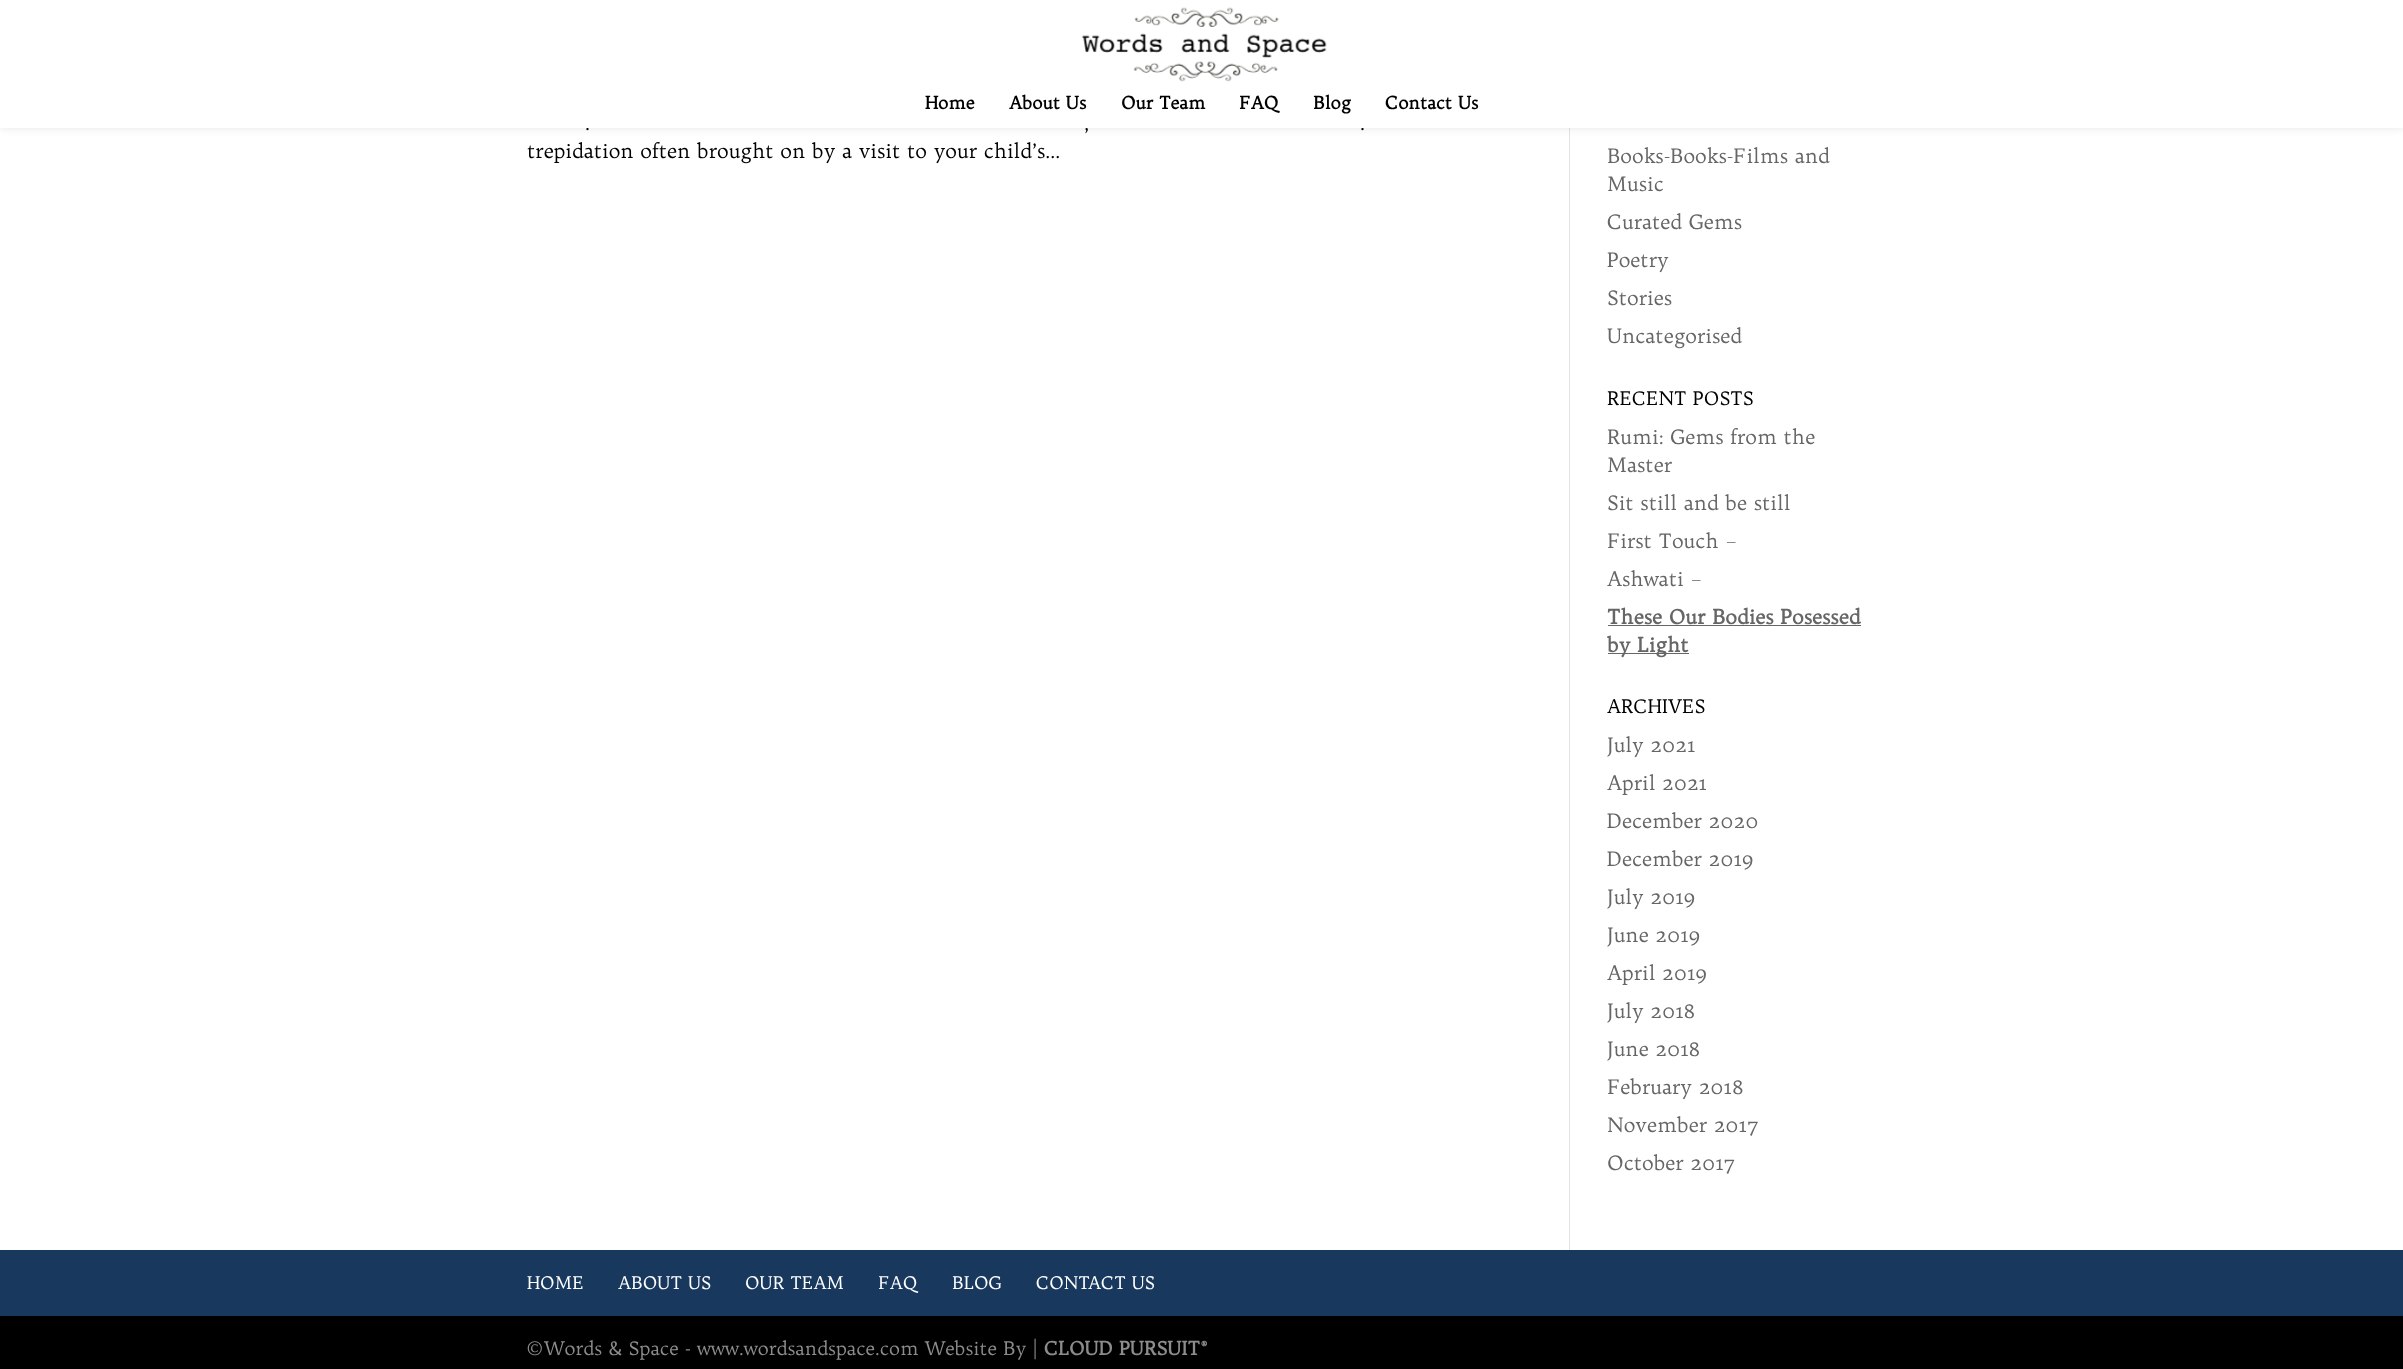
<!DOCTYPE html>
<meta charset="utf-8">
<style>body { margin: 0 } canvas { display: block }</style>
<canvas id="canvas" width="2403" height="1369"></canvas>
<script type="module">
  const canvas = document.getElementById("canvas");
  const ctx = canvas.getContext("2d");
  ctx.miterLimit = 4;
  ctx.fontKerning = "normal";
  async function loadImage(src) {
    const img = new Image();
    img.src = src;
    await img.decode();
    return img;
  }

  ctx.fillStyle = "#ffffff";
  ctx.fillRect(0, 0, 2403, 1369);
  ctx.fillStyle = "#e2e2e2";
  ctx.fillRect(1569, 128, 1, 1122);
  ctx.fillStyle = "rgba(0, 0, 0, 0.1)";
  ctx.filter = "blur(4.5px)";
  ctx.beginPath();
  ctx.rect(0, 0, 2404, 128);
  ctx.fill();
  ctx.filter = "none";
  ctx.font = "20px Trykker";
  ctx.fillStyle = "#000000";
  ctx.fillText(".", 585, 130);
  ctx.fillText(",", 1084, 130);
  ctx.fillText(".", 1360, 130);
  ctx.fillStyle = "#ffffff";
  ctx.fillRect(0, 0, 2403, 128);
  ctx.drawImage(await loadImage("img1.png"), 1082, 7, 245, 75);
  ctx.font = "bold 17.5px Trykker";
  ctx.fillStyle = "#000000";
  ctx.fillText("Home", 925, 109);
  ctx.fillText("About Us", 1009, 109);
  ctx.fillText("Our Team", 1121, 109);
  ctx.fillText("FAQ", 1239, 109);
  ctx.fillText("Blog", 1313, 109);
  ctx.fillText("Contact Us", 1385, 109);
  ctx.font = "20px Trykker";
  ctx.fillText("trepidation often brought on by a visit to your child’s...", 527, 158);
  ctx.fillStyle = "#666666";
  ctx.fillText("Books-Books-Films and", 1607, 163);
  ctx.fillText("Music", 1607, 191);
  ctx.fillText("Curated Gems", 1607, 229);
  ctx.fillText("Poetry", 1607, 267);
  ctx.fillText("Stories", 1607, 305);
  ctx.fillText("Uncategorised", 1607, 343);
  ctx.font = "18.75px Trykker";
  ctx.fillStyle = "#000000";
  ctx.fillText("RECENT POSTS", 1607, 405);
  ctx.font = "20px Trykker";
  ctx.fillStyle = "#666666";
  ctx.fillText("Rumi: Gems from the", 1607, 444);
  ctx.fillText("Master", 1607, 472);
  ctx.fillText("Sit still and be still", 1607, 510);
  ctx.fillText("First Touch –", 1607, 548);
  ctx.fillText("Ashwati –", 1607, 586);
  ctx.font = "bold 20px Trykker";
  ctx.fillText("These Our Bodies Posessed", 1607, 624);
  ctx.fillRect(1608, 625, 253, 1);
  ctx.fillRect(1608, 653, 81, 1);
  ctx.fillText("by Light", 1607, 652);
  ctx.font = "18.75px Trykker";
  ctx.fillStyle = "#000000";
  ctx.fillText("ARCHIVES", 1607, 713);
  ctx.font = "20px Trykker";
  ctx.fillStyle = "#666666";
  ctx.fillText("July 2021", 1607, 752);
  ctx.fillText("April 2021", 1607, 790);
  ctx.fillText("December 2020", 1607, 828);
  ctx.fillText("December 2019", 1607, 866);
  ctx.fillText("July 2019", 1607, 904);
  ctx.fillText("June 2019", 1607, 942);
  ctx.fillText("April 2019", 1607, 980);
  ctx.fillText("July 2018", 1607, 1018);
  ctx.fillText("June 2018", 1607, 1056);
  ctx.fillText("February 2018", 1607, 1094);
  ctx.fillText("November 2017", 1607, 1132);
  ctx.fillText("October 2017", 1607, 1170);
  ctx.fillStyle = "#18385d";
  ctx.fillRect(0, 1250, 2403, 66);
  ctx.font = "17.5px Trykker";
  ctx.fillStyle = "#ffffff";
  ctx.fillText("HOME", 527, 1289);
  ctx.fillText("ABOUT US", 618, 1289);
  ctx.fillText("OUR TEAM", 745, 1289);
  ctx.fillText("FAQ", 878, 1289);
  ctx.fillText("BLOG", 952, 1289);
  ctx.fillText("CONTACT US", 1036, 1289);
  ctx.fillStyle = "#000000";
  ctx.fillRect(0, 1316, 2403, 53);
  ctx.font = "18.75px Trykker";
  ctx.fillStyle = "#8c8c8c";
  ctx.fillText("©Words & Space - www.wordsandspace.com Website By |", 527, 1355);
  ctx.font = "bold 18.75px Trykker";
  ctx.fillText("CLOUD PURSUIT®", 1044, 1355);
</script>
